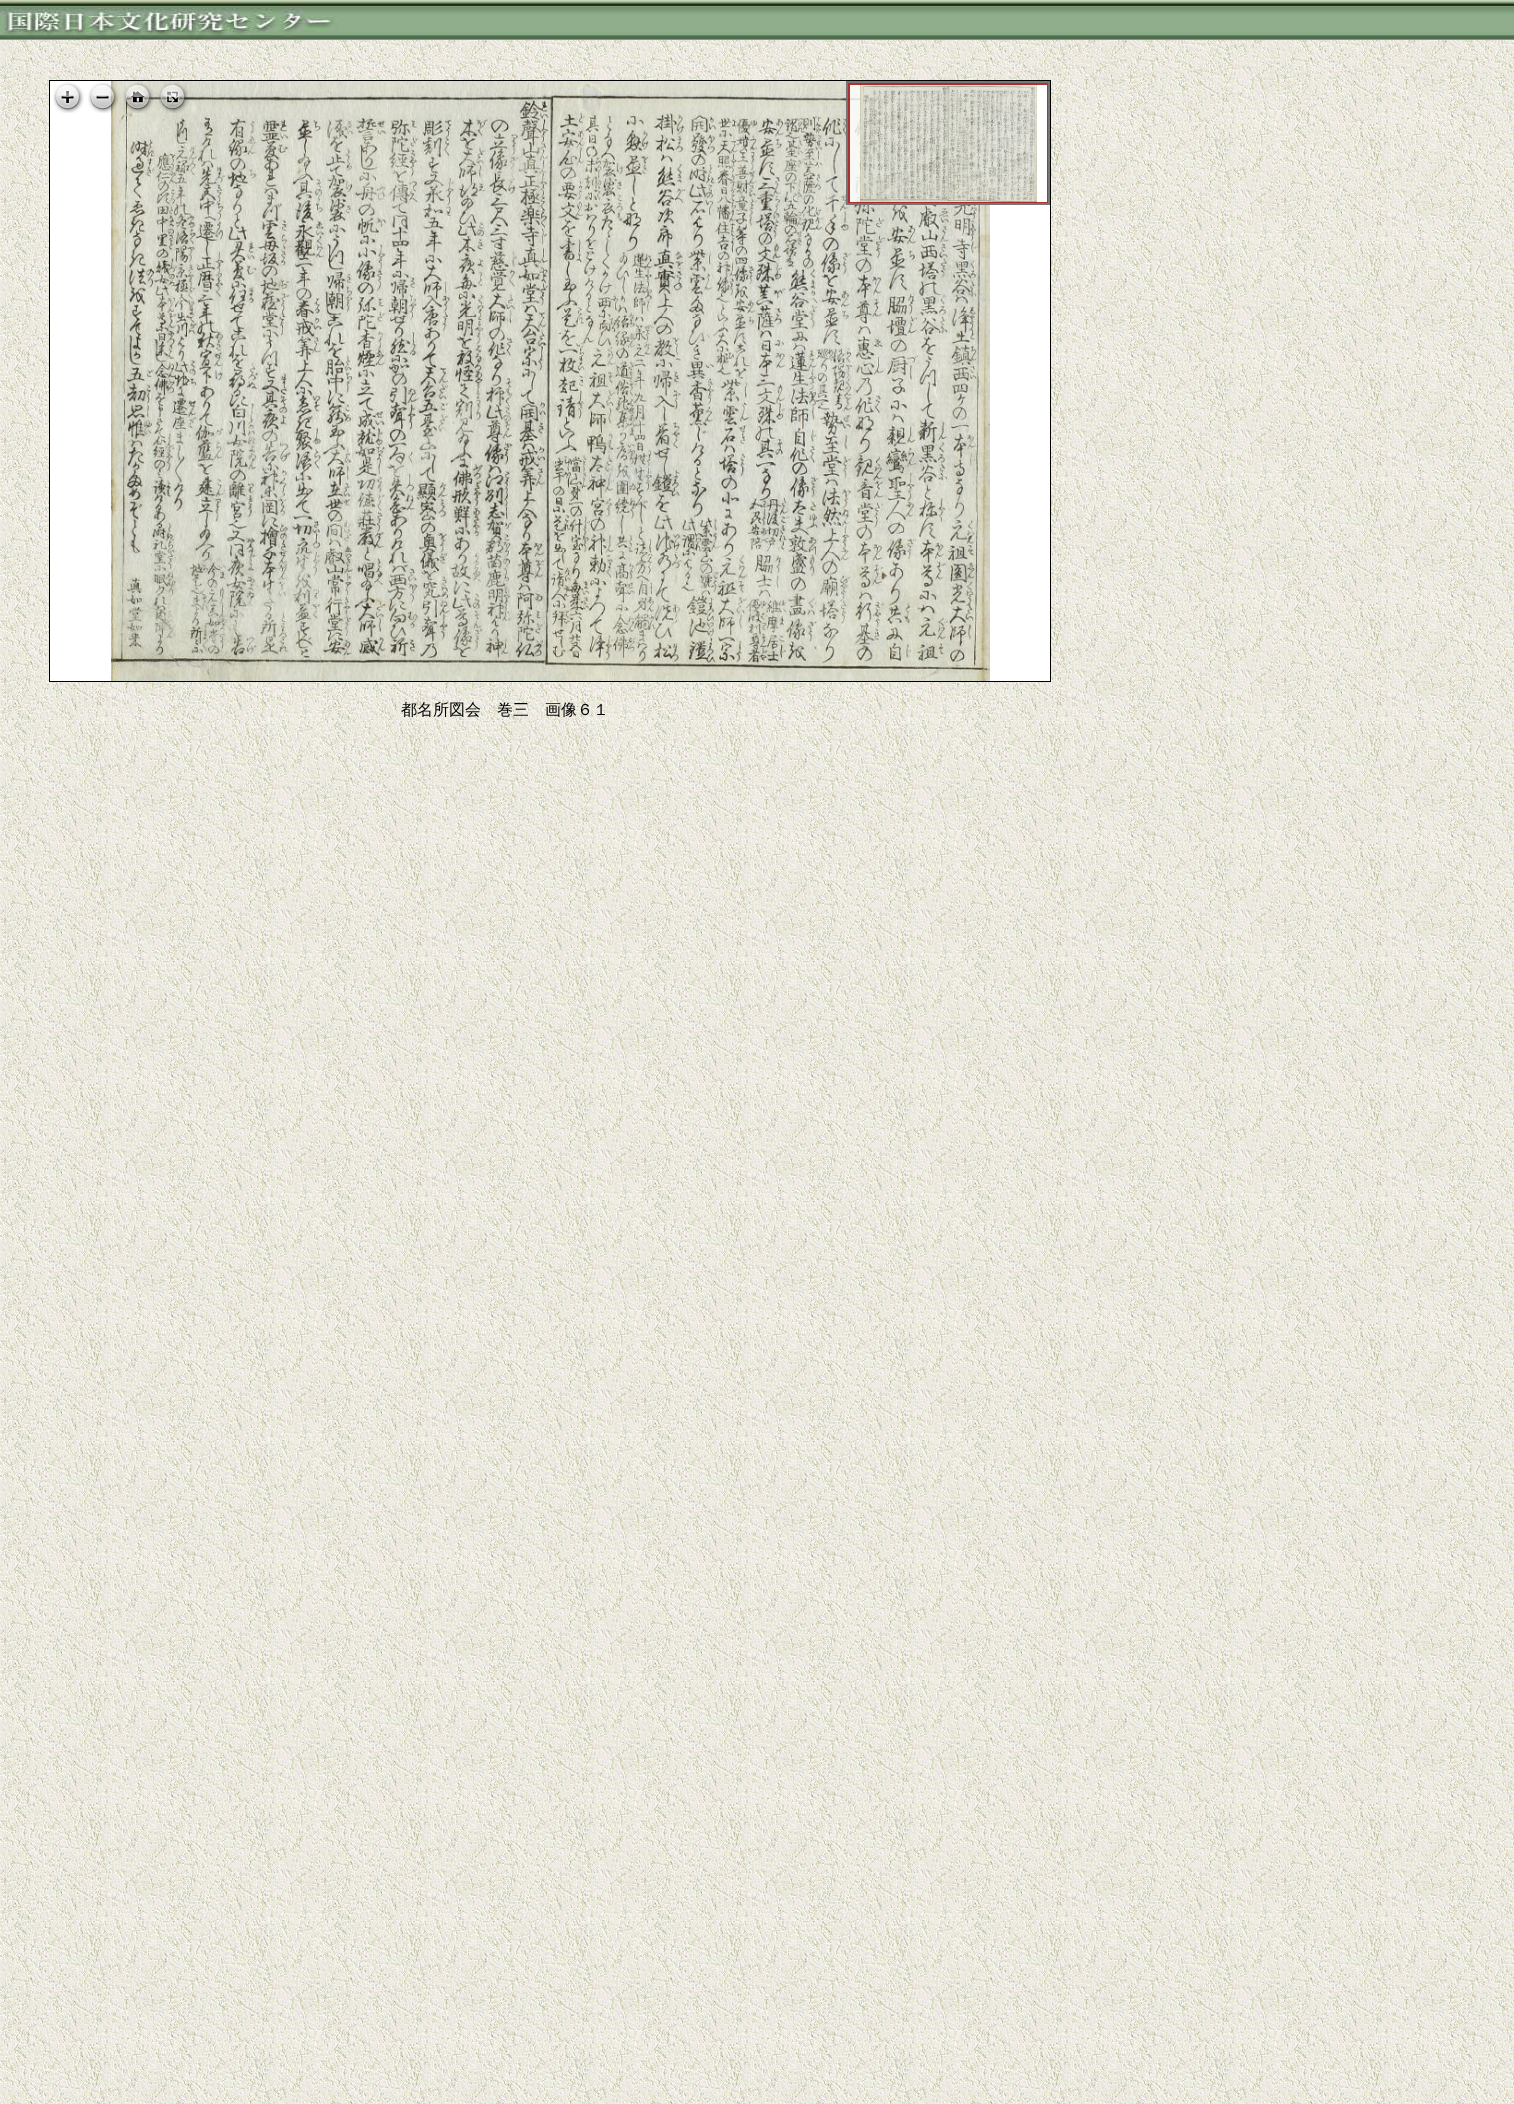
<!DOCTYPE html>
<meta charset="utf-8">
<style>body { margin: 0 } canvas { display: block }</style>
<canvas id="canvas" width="1514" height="2104"></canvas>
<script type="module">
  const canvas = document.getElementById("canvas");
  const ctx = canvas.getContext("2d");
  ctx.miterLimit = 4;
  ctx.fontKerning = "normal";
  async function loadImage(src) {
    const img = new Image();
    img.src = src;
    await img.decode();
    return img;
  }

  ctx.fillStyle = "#ffffff";
  ctx.fillRect(0, 0, 1514, 2104);
  ctx.drawImage(await loadImage("img1.png"), 0, 40, 1514, 2064);
  ctx.drawImage(await loadImage("img2.png"), 0, 0, 1514, 40);
  ctx.fillStyle = "#000000";
  ctx.fillRect(49, 80, 1002, 602);
  ctx.fillStyle = "#ffffff";
  ctx.fillRect(50, 81, 1000, 600);
  ctx.drawImage(await loadImage("img3.png"), 111, 81, 879, 600);
  ctx.drawImage(await loadImage("img4.png"), 53, 82, 31, 31);
  ctx.fillStyle = "#6e6e6e";
  ctx.fillRect(72, 107, 1, 1);
  ctx.drawImage(await loadImage("img5.png"), 88, 82, 31, 31);
  ctx.fillRect(107, 107, 1, 1);
  ctx.drawImage(await loadImage("img6.png"), 123, 82, 31, 31);
  ctx.drawImage(await loadImage("img7.png"), 158, 82, 31, 31);
  ctx.fillStyle = "rgba(255, 255, 255, 0.8)";
  ctx.fillRect(846, 81, 144, 124);
  ctx.strokeStyle = "rgba(85, 85, 85, 0.8)";
  ctx.lineWidth = 2;
  ctx.strokeRect(847, 82, 202, 122);
  ctx.drawImage(await loadImage("img8.png"), 860, 83, 177, 120);
  ctx.save();
  ctx.beginPath();
  ctx.rect(848, 83, 200, 120);
  ctx.clip();
  ctx.strokeStyle = "rgba(153, 0, 0, 0.8)";
  ctx.strokeRect(849, 84, 199, 119);
  ctx.restore();
  ctx.font = "500 16px WenQuanYi Zen Hei";
  ctx.fillStyle = "#000000";
  ctx.fillText("都名所図会　巻三　画像６１", 401, 715);
</script>
